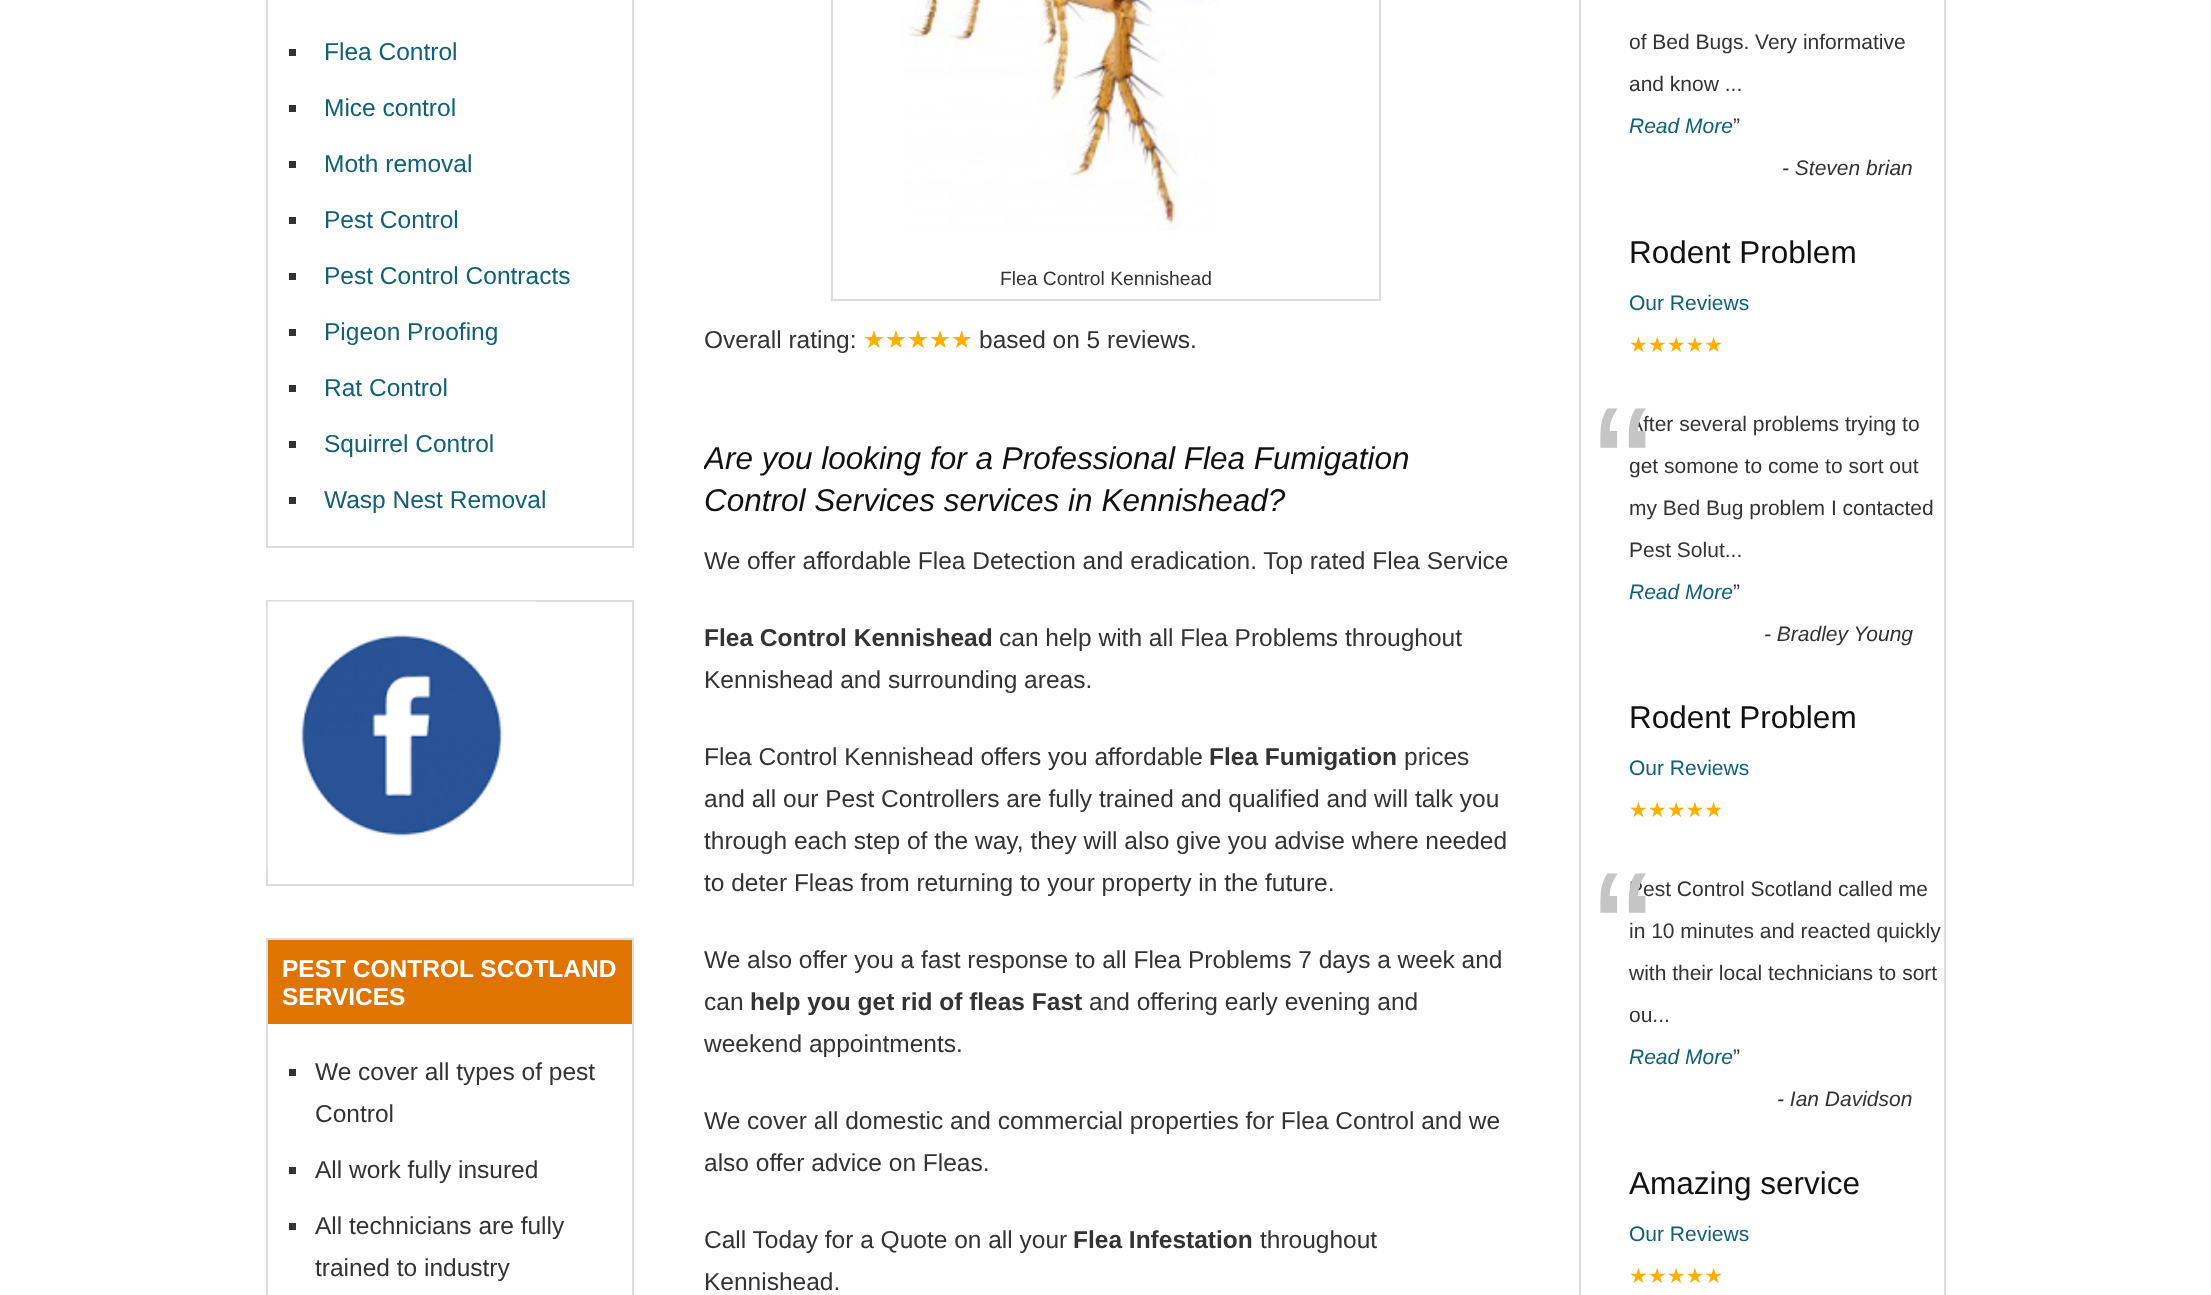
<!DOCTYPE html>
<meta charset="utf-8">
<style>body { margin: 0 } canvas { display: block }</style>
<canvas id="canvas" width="2211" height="1295"></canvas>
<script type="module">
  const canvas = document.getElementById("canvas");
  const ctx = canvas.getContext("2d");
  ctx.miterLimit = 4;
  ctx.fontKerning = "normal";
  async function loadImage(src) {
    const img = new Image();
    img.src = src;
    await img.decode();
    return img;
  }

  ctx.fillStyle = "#ffffff";
  ctx.fillRect(0, 0, 2211, 1295);
  ctx.strokeStyle = "#dddddd";
  ctx.lineWidth = 2;
  ctx.strokeRect(267, -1, 366, 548);
  ctx.fillStyle = "#333333";
  ctx.fillRect(289, 49, 7, 7);
  ctx.font = "24.5px Liberation Sans";
  ctx.fillStyle = "#106177";
  ctx.fillText("Flea Control", 324, 60);
  ctx.fillStyle = "#333333";
  ctx.fillRect(289, 105, 7, 7);
  ctx.fillStyle = "#106177";
  ctx.fillText("Mice control", 324, 116);
  ctx.fillStyle = "#333333";
  ctx.fillRect(289, 161, 7, 7);
  ctx.fillStyle = "#106177";
  ctx.fillText("Moth removal", 324, 172);
  ctx.fillStyle = "#333333";
  ctx.fillRect(289, 217, 7, 7);
  ctx.fillStyle = "#106177";
  ctx.fillText("Pest Control", 324, 228);
  ctx.fillStyle = "#333333";
  ctx.fillRect(289, 273, 7, 7);
  ctx.fillStyle = "#106177";
  ctx.fillText("Pest Control Contracts", 324, 284);
  ctx.fillStyle = "#333333";
  ctx.fillRect(289, 329, 7, 7);
  ctx.fillStyle = "#106177";
  ctx.fillText("Pigeon Proofing", 324, 340);
  ctx.fillStyle = "#333333";
  ctx.fillRect(289, 385, 7, 7);
  ctx.fillStyle = "#106177";
  ctx.fillText("Rat Control", 324, 396);
  ctx.fillStyle = "#333333";
  ctx.fillRect(289, 441, 7, 7);
  ctx.fillStyle = "#106177";
  ctx.fillText("Squirrel Control", 324, 452);
  ctx.fillStyle = "#333333";
  ctx.fillRect(289, 497, 7, 7);
  ctx.fillStyle = "#106177";
  ctx.fillText("Wasp Nest Removal", 324, 508);
  ctx.strokeRect(267, 601, 366, 284);
  ctx.drawImage(await loadImage("img1.png"), 267, 601, 269, 268);
  ctx.strokeRect(267, 939, 366, 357);
  ctx.fillStyle = "#df7401";
  ctx.fillRect(268, 940, 364, 84);
  ctx.font = "bold 24.5px Liberation Sans";
  ctx.fillStyle = "#ffffff";
  ctx.fillText("PEST CONTROL SCOTLAND", 282, 977);
  ctx.fillText("SERVICES", 282, 1005);
  ctx.fillStyle = "#333333";
  ctx.fillRect(289, 1069, 7, 7);
  ctx.font = "24.5px Liberation Sans";
  ctx.fillText("We cover all types of pest", 315, 1080);
  ctx.fillText("Control", 315, 1122);
  ctx.fillRect(289, 1167, 7, 7);
  ctx.fillText("All work fully insured", 315, 1178);
  ctx.fillRect(289, 1223, 7, 7);
  ctx.fillText("All technicians are fully", 315, 1234);
  ctx.fillText("trained to industry", 315, 1276);
  ctx.strokeRect(832, -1, 548, 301);
  ctx.drawImage(await loadImage("img2.png"), 900, 0, 320, 231);
  ctx.font = "19.25px Liberation Sans";
  ctx.fillText("Flea Control Kennishead", 1000, 285);
  ctx.font = "24.5px Liberation Sans";
  ctx.fillText("Overall rating:", 704, 348);
  ctx.font = "24.5px DejaVu Sans";
  ctx.fillStyle = "#ffaf00";
  ctx.fillText("★★★★★", 863, 348);
  ctx.font = "24.5px Liberation Sans";
  ctx.fillStyle = "#333333";
  ctx.fillText("based on 5 reviews.", 979, 348);
  ctx.save();
  ctx.beginPath();
  ctx.rect(704, 0, 805, 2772);
  ctx.clip();
  ctx.font = "italic 31.5px Liberation Sans";
  ctx.fillStyle = "#111111";
  ctx.fillText("Are you looking for a Professional Flea Fumigation", 704, 469);
  ctx.restore();
  ctx.font = "italic 31.5px Liberation Sans";
  ctx.fillStyle = "#111111";
  ctx.fillText("Control Services services in Kennishead?", 704, 511);
  ctx.font = "24.5px Liberation Sans";
  ctx.fillStyle = "#333333";
  ctx.fillText("We offer affordable Flea Detection and eradication. Top rated Flea Service", 704, 569);
  ctx.font = "bold 24.5px Liberation Sans";
  ctx.fillText("Flea Control Kennishead", 704, 646);
  ctx.font = "24.5px Liberation Sans";
  ctx.fillText("can help with all Flea Problems throughout", 999, 646);
  ctx.fillText("Kennishead and surrounding areas.", 704, 688);
  ctx.fillText("Flea Control Kennishead offers you affordable", 704, 765);
  ctx.font = "bold 24.5px Liberation Sans";
  ctx.fillText("Flea Fumigation", 1209, 765);
  ctx.font = "24.5px Liberation Sans";
  ctx.fillText("prices", 1404, 765);
  ctx.fillText("and all our Pest Controllers are fully trained and qualified and will talk you", 704, 807);
  ctx.fillText("through each step of the way, they will also give you advise where needed", 704, 849);
  ctx.fillText("to deter Fleas from returning to your property in the future.", 704, 891);
  ctx.fillText("We also offer you a fast response to all Flea Problems 7 days a week and", 704, 968);
  ctx.fillText("can", 704, 1010);
  ctx.font = "bold 24.5px Liberation Sans";
  ctx.fillText("help you get rid of fleas Fast", 750, 1010);
  ctx.font = "24.5px Liberation Sans";
  ctx.fillText("and offering early evening and", 1089, 1010);
  ctx.fillText("weekend appointments.", 704, 1052);
  ctx.fillText("We cover all domestic and commercial properties for Flea Control and we", 704, 1129);
  ctx.fillText("also offer advice on Fleas.", 704, 1171);
  ctx.fillText("Call Today for a Quote on all your", 704, 1248);
  ctx.font = "bold 24.5px Liberation Sans";
  ctx.fillText("Flea Infestation", 1073, 1248);
  ctx.font = "24.5px Liberation Sans";
  ctx.fillText("throughout", 1260, 1248);
  ctx.fillText("Kennishead.", 704, 1290);
  ctx.strokeRect(1580, -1, 365, 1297);
  ctx.font = "21px Liberation Sans";
  ctx.fillText("of Bed Bugs. Very informative", 1629, 49);
  ctx.fillText("and know ...", 1629, 91);
  ctx.font = "italic 21px Liberation Sans";
  ctx.fillStyle = "#106177";
  ctx.fillText("Read More", 1629, 133);
  ctx.font = "21px Liberation Sans";
  ctx.fillStyle = "#333333";
  ctx.fillText("”", 1733, 133);
  ctx.font = "italic 21px Liberation Sans";
  ctx.fillText("- Steven brian", 1782, 175);
  ctx.font = "31.5px Liberation Sans";
  ctx.fillStyle = "#111111";
  ctx.fillText("Rodent Problem", 1629, 263);
  ctx.font = "21px Liberation Sans";
  ctx.fillStyle = "#106177";
  ctx.fillText("Our Reviews", 1629, 310);
  ctx.font = "21px DejaVu Sans";
  ctx.fillStyle = "#ffaf00";
  ctx.fillText("★★★★★", 1629, 352);
  ctx.font = "21px Liberation Sans";
  ctx.fillStyle = "#333333";
  ctx.fillText("After several problems trying to", 1629, 431);
  ctx.font = "175px Liberation Sans";
  ctx.fillStyle = "#c5c5c5";
  ctx.fillText("“", 1594, 529);
  ctx.font = "21px Liberation Sans";
  ctx.fillStyle = "#333333";
  ctx.fillText("get somone to come to sort out", 1629, 473);
  ctx.fillText("my Bed Bug problem I contacted", 1629, 515);
  ctx.fillText("Pest Solut...", 1629, 557);
  ctx.font = "italic 21px Liberation Sans";
  ctx.fillStyle = "#106177";
  ctx.fillText("Read More", 1629, 599);
  ctx.font = "21px Liberation Sans";
  ctx.fillStyle = "#333333";
  ctx.fillText("”", 1733, 599);
  ctx.font = "italic 21px Liberation Sans";
  ctx.fillText("- Bradley Young", 1764, 641);
  ctx.font = "31.5px Liberation Sans";
  ctx.fillStyle = "#111111";
  ctx.fillText("Rodent Problem", 1629, 728);
  ctx.font = "21px Liberation Sans";
  ctx.fillStyle = "#106177";
  ctx.fillText("Our Reviews", 1629, 775);
  ctx.font = "21px DejaVu Sans";
  ctx.fillStyle = "#ffaf00";
  ctx.fillText("★★★★★", 1629, 817);
  ctx.font = "21px Liberation Sans";
  ctx.fillStyle = "#333333";
  ctx.fillText("Pest Control Scotland called me", 1629, 896);
  ctx.font = "175px Liberation Sans";
  ctx.fillStyle = "#c5c5c5";
  ctx.fillText("“", 1594, 994);
  ctx.font = "21px Liberation Sans";
  ctx.fillStyle = "#333333";
  ctx.fillText("in 10 minutes and reacted quickly", 1629, 938);
  ctx.fillText("with their local technicians to sort", 1629, 980);
  ctx.fillText("ou...", 1629, 1022);
  ctx.font = "italic 21px Liberation Sans";
  ctx.fillStyle = "#106177";
  ctx.fillText("Read More", 1629, 1064);
  ctx.font = "21px Liberation Sans";
  ctx.fillStyle = "#333333";
  ctx.fillText("”", 1733, 1064);
  ctx.font = "italic 21px Liberation Sans";
  ctx.fillText("- Ian Davidson", 1777, 1106);
  ctx.font = "31.5px Liberation Sans";
  ctx.fillStyle = "#111111";
  ctx.fillText("Amazing service", 1629, 1194);
  ctx.font = "21px Liberation Sans";
  ctx.fillStyle = "#106177";
  ctx.fillText("Our Reviews", 1629, 1241);
  ctx.font = "21px DejaVu Sans";
  ctx.fillStyle = "#ffaf00";
  ctx.fillText("★★★★★", 1629, 1283);
</script>
